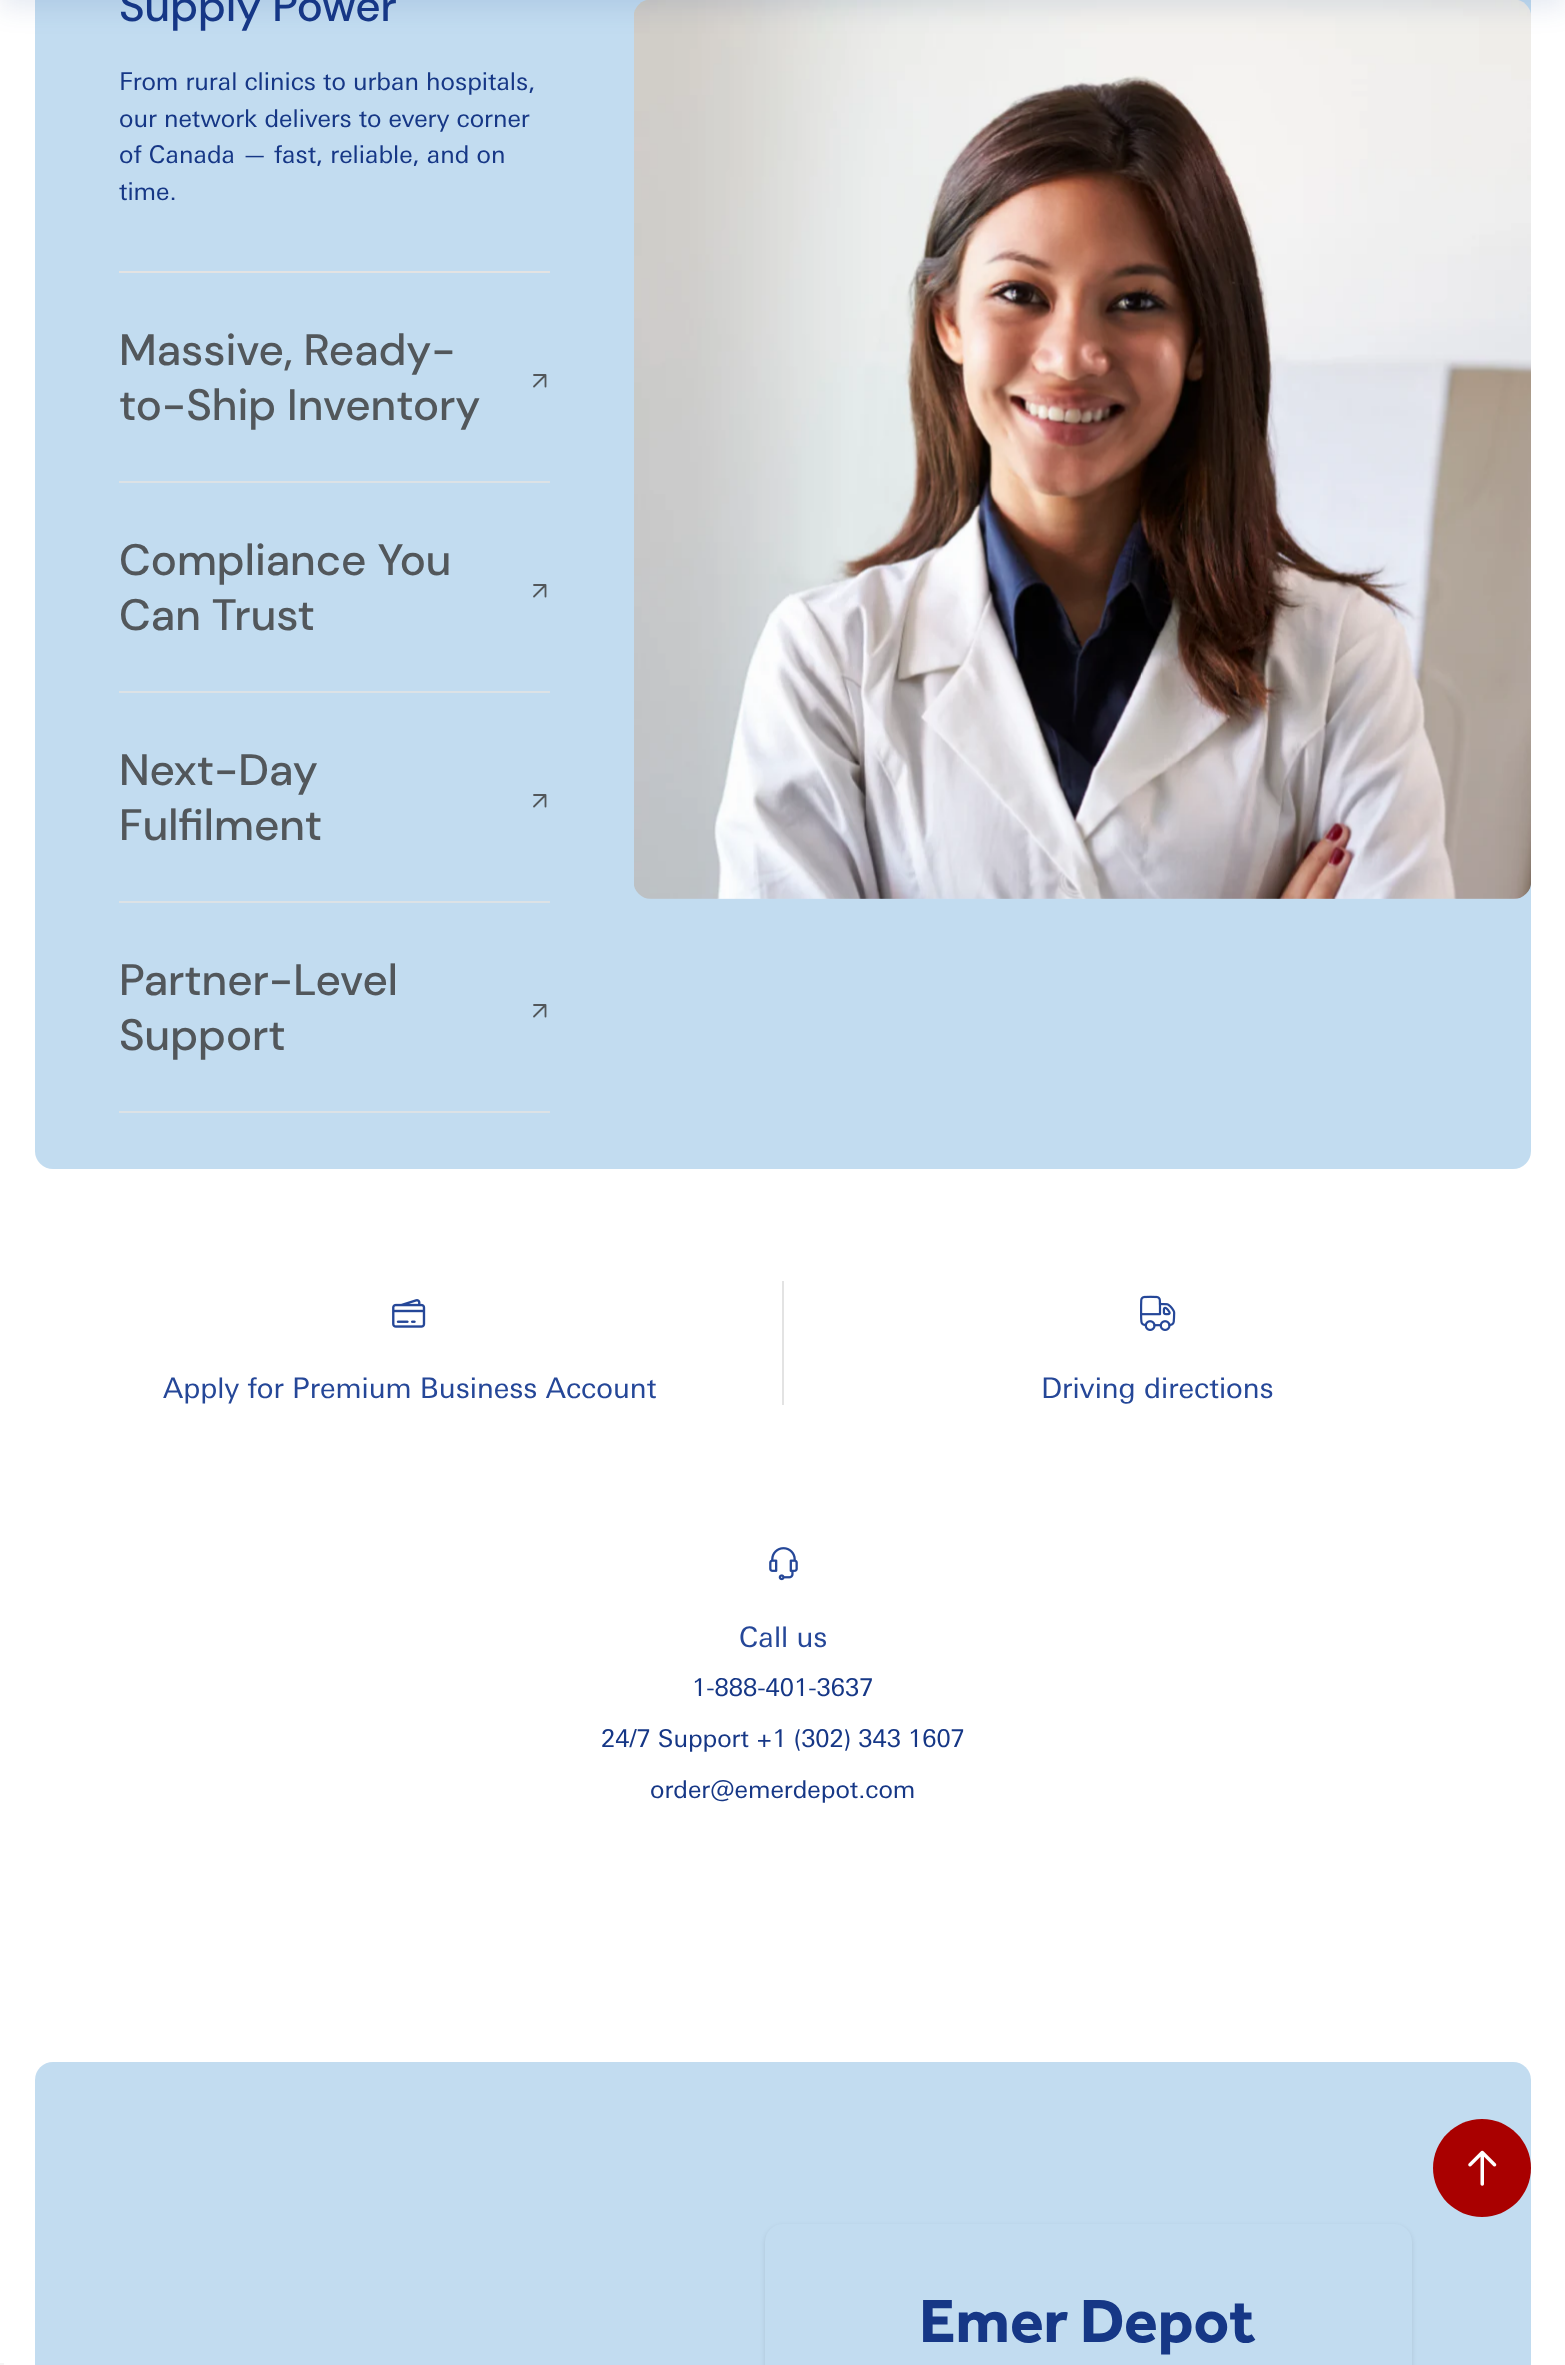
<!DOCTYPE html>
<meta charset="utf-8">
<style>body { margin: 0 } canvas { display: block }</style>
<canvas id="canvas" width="1565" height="2365"></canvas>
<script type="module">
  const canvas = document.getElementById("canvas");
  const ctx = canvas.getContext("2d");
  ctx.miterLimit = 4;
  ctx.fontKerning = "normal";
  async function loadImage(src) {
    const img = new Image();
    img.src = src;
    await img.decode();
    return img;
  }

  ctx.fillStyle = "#ffffff";
  ctx.fillRect(0, 0, 1565, 2365);
  ctx.fillStyle = "#c2dcf0";
  ctx.beginPath();
  ctx.roundRect(35, -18, 1496, 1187, 18);
  ctx.fill();
  ctx.drawImage(await loadImage("img1.png"), 634, 0, 897, 899);
  ctx.fillStyle = "rgba(22, 55, 134, 0.1)";
  ctx.filter = "blur(13px)";
  ctx.beginPath();
  ctx.rect(0, -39, 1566, 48);
  ctx.fill();
  ctx.filter = "none";
  ctx.fillStyle = "#e3e3e3";
  ctx.fillRect(119, 271, 431, 2);
  ctx.font = "500 44px DM Sans";
  ctx.fillStyle = "#163786";
  ctx.fillText("Supply Power", 119, 21);
  ctx.font = "24.5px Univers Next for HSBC";
  ctx.fillText("From rural clinics to urban hospitals,", 119, 90);
  ctx.fillText("our network delivers to every corner", 119, 127);
  ctx.fillText("of Canada — fast, reliable, and on", 119, 163);
  ctx.fillText("time.", 119, 200);
  ctx.fillStyle = "#dce2e6";
  ctx.fillRect(119, 481, 431, 2);
  ctx.font = "500 44px DM Sans";
  ctx.fillStyle = "#52575b";
  ctx.fillText("Massive, Ready-", 119, 365);
  ctx.fillText("to-Ship Inventory", 119, 420);
  ctx.beginPath();
  ctx.moveTo(534, 386.5);
  ctx.lineTo(545.5, 375);
  ctx.moveTo(534, 375);
  ctx.lineTo(545.5, 375);
  ctx.lineTo(545.5, 386.5);
  ctx.strokeStyle = "#52575b";
  ctx.lineWidth = 1.8;
  ctx.lineCap = "round";
  ctx.lineJoin = "round";
  ctx.stroke();
  ctx.fillStyle = "#dce2e6";
  ctx.fillRect(119, 691, 431, 2);
  ctx.fillStyle = "#52575b";
  ctx.fillText("Compliance You", 119, 575);
  ctx.fillText("Can Trust", 119, 630);
  ctx.beginPath();
  ctx.moveTo(534, 596.5);
  ctx.lineTo(545.5, 585);
  ctx.moveTo(534, 585);
  ctx.lineTo(545.5, 585);
  ctx.lineTo(545.5, 596.5);
  ctx.stroke();
  ctx.fillStyle = "#dce2e6";
  ctx.fillRect(119, 901, 431, 2);
  ctx.fillStyle = "#52575b";
  ctx.fillText("Next-Day", 119, 785);
  ctx.fillText("Fulfilment", 119, 840);
  ctx.beginPath();
  ctx.moveTo(534, 806.5);
  ctx.lineTo(545.5, 795);
  ctx.moveTo(534, 795);
  ctx.lineTo(545.5, 795);
  ctx.lineTo(545.5, 806.5);
  ctx.stroke();
  ctx.fillStyle = "#dce2e6";
  ctx.fillRect(119, 1111, 431, 2);
  ctx.fillStyle = "#52575b";
  ctx.fillText("Partner-Level", 119, 995);
  ctx.fillText("Support", 119, 1050);
  ctx.beginPath();
  ctx.moveTo(534, 1016.5);
  ctx.lineTo(545.5, 1005);
  ctx.moveTo(534, 1005);
  ctx.lineTo(545.5, 1005);
  ctx.lineTo(545.5, 1016.5);
  ctx.stroke();
  ctx.drawImage(await loadImage("img2.png"), 392, 1299, 34, 29);
  ctx.font = "28.4px Univers Next for HSBC";
  ctx.fillStyle = "#254798";
  ctx.fillText("Apply for Premium Business Account", 163, 1398);
  ctx.fillStyle = "#e3e3e3";
  ctx.fillRect(782, 1281, 2, 124);
  ctx.drawImage(await loadImage("img3.png"), 1140, 1295, 36, 36);
  ctx.fillStyle = "#254798";
  ctx.fillText("Driving directions", 1041, 1398);
  ctx.drawImage(await loadImage("img4.png"), 769, 1547, 29, 34);
  ctx.fillText("Call us", 739, 1647);
  ctx.font = "24.5px Univers Next for HSBC";
  ctx.fillStyle = "#163786";
  ctx.fillText("1-888-401-3637", 692, 1696);
  ctx.fillText("24/7 Support +1 (302) 343 1607", 601, 1747);
  ctx.fillText("order@emerdepot.com", 650, 1798);
  ctx.fillStyle = "#c2dcf0";
  ctx.beginPath();
  ctx.roundRect(35, 2062, 1496, 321, 18);
  ctx.fill();
  ctx.fillStyle = "rgba(0, 0, 0, 0.1)";
  ctx.filter = "blur(2.5px)";
  ctx.beginPath();
  ctx.roundRect(765, 2226, 647, 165, 18);
  ctx.fill();
  ctx.filter = "none";
  ctx.fillStyle = "#c2dcf0";
  ctx.beginPath();
  ctx.roundRect(765, 2224, 647, 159, 18);
  ctx.fill();
  ctx.font = "bold 63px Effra";
  ctx.fillStyle = "#163786";
  ctx.fillText("Emer Depot", 919, 2342);
  ctx.fillStyle = "#a90000";
  ctx.beginPath();
  ctx.moveTo(1433, 2168);
  ctx.bezierCurveTo(1433, 2141, 1455, 2119, 1482, 2119);
  ctx.bezierCurveTo(1509, 2119, 1531, 2141, 1531, 2168);
  ctx.bezierCurveTo(1531, 2195, 1509, 2217, 1482, 2217);
  ctx.bezierCurveTo(1455, 2217, 1433, 2195, 1433, 2168);
  ctx.closePath();
  ctx.fill();
  ctx.drawImage(await loadImage("img5.png"), 1468, 2150, 29, 36);
  ctx.fillStyle = "#f5f5f5";
  ctx.fillRect(0, 2363, 4, 2);
</script>
